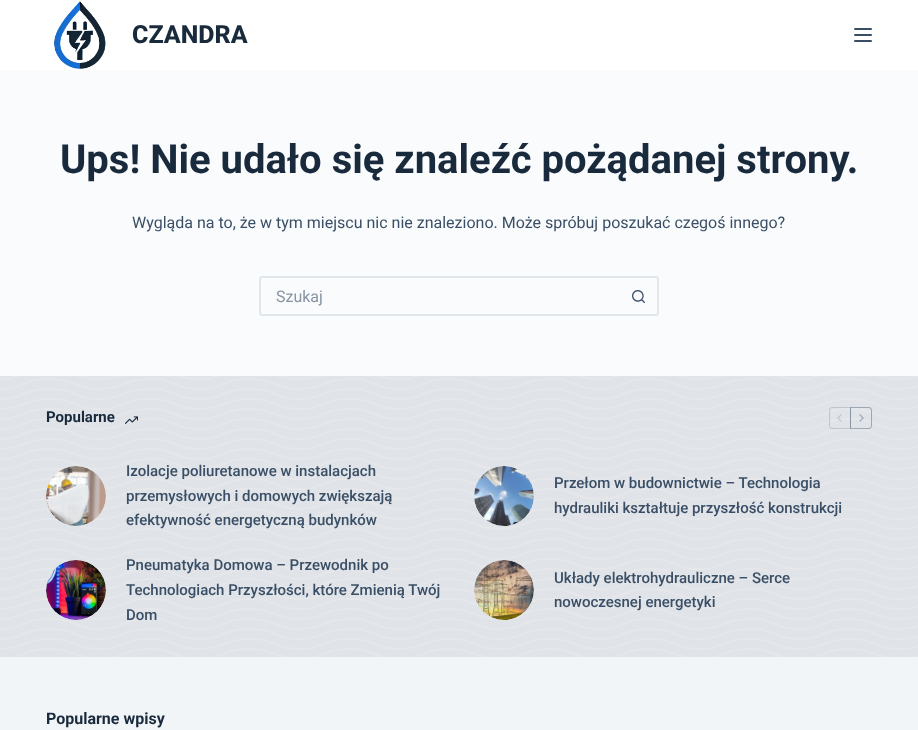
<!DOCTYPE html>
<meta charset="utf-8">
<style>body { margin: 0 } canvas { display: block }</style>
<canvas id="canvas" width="918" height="730"></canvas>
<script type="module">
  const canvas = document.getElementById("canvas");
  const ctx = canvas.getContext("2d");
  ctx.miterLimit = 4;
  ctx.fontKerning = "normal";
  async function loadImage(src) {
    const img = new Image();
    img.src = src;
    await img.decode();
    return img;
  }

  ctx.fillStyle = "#fafbfc";
  ctx.fillRect(0, 0, 918, 730);
  ctx.fillStyle = "#ffffff";
  ctx.fillRect(0, 0, 918, 70);
  ctx.drawImage(await loadImage("img1.png"), 54, 1, 52, 68);
  ctx.font = "800 25px Roboto";
  ctx.fillStyle = "#192a3d";
  ctx.fillText("CZANDRA", 132, 43);
  ctx.fillStyle = "#3a4f66";
  ctx.beginPath();
  ctx.roundRect(854, 28, 18, 2, 1);
  ctx.fill();
  ctx.beginPath();
  ctx.roundRect(854, 34, 18, 2, 1);
  ctx.fill();
  ctx.beginPath();
  ctx.roundRect(854, 40, 18, 2, 1);
  ctx.fill();
  ctx.font = "bold 40px Roboto";
  ctx.fillStyle = "#192a3d";
  ctx.fillText("Ups! Nie udało się znaleźć pożądanej strony.", 60, 173);
  ctx.font = "16px Roboto";
  ctx.fillStyle = "#3a4f66";
  ctx.fillText("Wygląda na to, że w tym miejscu nic nie znaleziono. Może spróbuj poszukać czegoś innego?", 132, 228);
  ctx.fillStyle = "#e1e8ed";
  ctx.beginPath();
  ctx.moveTo(262, 276);
  ctx.lineTo(619, 276);
  ctx.lineTo(619, 316);
  ctx.lineTo(262, 316);
  ctx.bezierCurveTo(260, 316, 259, 315, 259, 313);
  ctx.lineTo(259, 279);
  ctx.bezierCurveTo(259, 277, 260, 276, 262, 276);
  ctx.closePath();
  ctx.moveTo(262, 278);
  ctx.lineTo(619, 278);
  ctx.lineTo(619, 314);
  ctx.lineTo(262, 314);
  ctx.lineTo(261, 313);
  ctx.lineTo(261, 279);
  ctx.closePath();
  ctx.fill("evenodd");
  ctx.fillStyle = "#8794a2";
  ctx.fillText("Szukaj", 276, 302);
  ctx.fillStyle = "#e1e8ed";
  ctx.beginPath();
  ctx.moveTo(619, 276);
  ctx.lineTo(656, 276);
  ctx.bezierCurveTo(658, 276, 659, 277, 659, 279);
  ctx.lineTo(659, 313);
  ctx.bezierCurveTo(659, 315, 658, 316, 656, 316);
  ctx.lineTo(619, 316);
  ctx.closePath();
  ctx.moveTo(619, 278);
  ctx.lineTo(656, 278);
  ctx.bezierCurveTo(657, 278, 657, 278, 657, 279);
  ctx.lineTo(657, 313);
  ctx.bezierCurveTo(657, 314, 657, 314, 656, 314);
  ctx.lineTo(619, 314);
  ctx.closePath();
  ctx.fill("evenodd");
  ctx.drawImage(await loadImage("img2.png"), 632, 290, 13, 13);
  ctx.fillStyle = "#e0e3e8";
  ctx.fillRect(0, 376, 918, 281);
  ctx.drawImage(await loadImage("img3.png"), 0, 376, 918, 281);
  ctx.font = "bold 15px Roboto";
  ctx.fillStyle = "#192a3d";
  ctx.fillText("Popularne", 46, 422);
  ctx.drawImage(await loadImage("img4.png"), 125, 416, 13, 8);
  ctx.beginPath();
  ctx.roundRect(829.5, 407.5, 21, 21, [2.5, 0, 0, 2.5]);
  ctx.strokeStyle = "rgba(58, 79, 102, 0.2)";
  ctx.stroke();
  ctx.drawImage(await loadImage("img5.png"), 837, 414, 5, 8);
  ctx.beginPath();
  ctx.roundRect(850.5, 407.5, 21, 21, [0, 2.5, 2.5, 0]);
  ctx.strokeStyle = "rgba(58, 79, 102, 0.4)";
  ctx.stroke();
  ctx.drawImage(await loadImage("img6.png"), 859, 414, 5, 8);
  ctx.drawImage(await loadImage("img7.png"), 46, 466, 60, 60);
  ctx.font = "500 15px Roboto";
  ctx.fillStyle = "#3a4f66";
  ctx.fillText("Izolacje poliuretanowe w instalacjach", 126, 476);
  ctx.fillText("przemysłowych i domowych zwiększają", 126, 501);
  ctx.fillText("efektywność energetyczną budynków", 126, 525);
  ctx.drawImage(await loadImage("img8.png"), 474, 466, 60, 60);
  ctx.fillText("Przełom w budownictwie – Technologia", 554, 488);
  ctx.fillText("hydrauliki kształtuje przyszłość konstrukcji", 554, 513);
  ctx.drawImage(await loadImage("img9.png"), 46, 560, 60, 60);
  ctx.fillText("Pneumatyka Domowa – Przewodnik po", 126, 570);
  ctx.fillText("Technologiach Przyszłości, które Zmienią Twój", 126, 595);
  ctx.fillText("Dom", 126, 620);
  ctx.drawImage(await loadImage("img10.png"), 474, 560, 60, 60);
  ctx.fillText("Układy elektrohydrauliczne – Serce", 554, 583);
  ctx.fillText("nowoczesnej energetyki", 554, 607);
  ctx.fillStyle = "#f2f5f7";
  ctx.fillRect(0, 657, 918, 73);
  ctx.font = "bold 16px Roboto";
  ctx.fillStyle = "#192a3d";
  ctx.fillText("Popularne wpisy", 46, 724);
</script>
